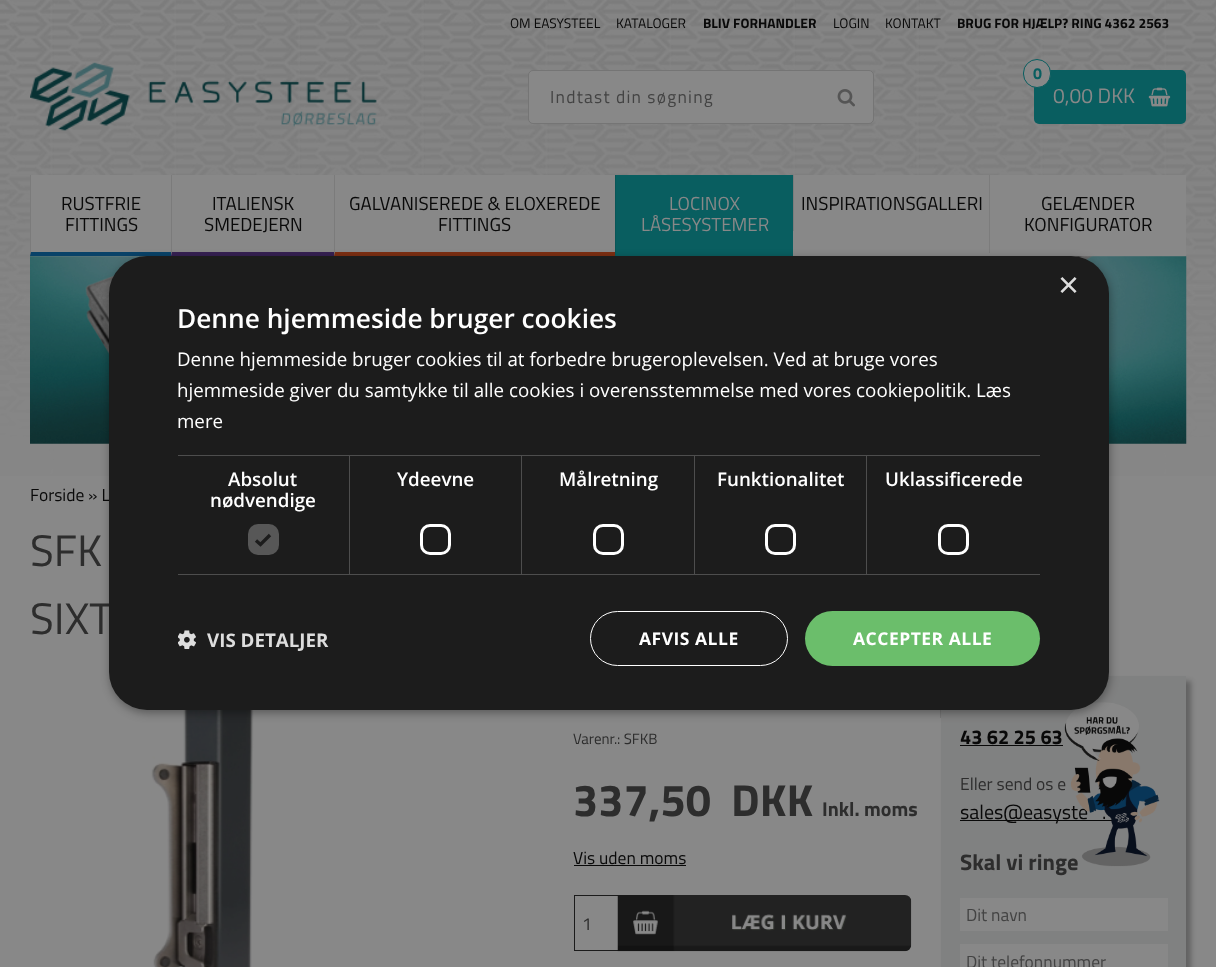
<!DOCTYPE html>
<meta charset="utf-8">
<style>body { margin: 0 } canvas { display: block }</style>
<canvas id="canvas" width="1216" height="967"></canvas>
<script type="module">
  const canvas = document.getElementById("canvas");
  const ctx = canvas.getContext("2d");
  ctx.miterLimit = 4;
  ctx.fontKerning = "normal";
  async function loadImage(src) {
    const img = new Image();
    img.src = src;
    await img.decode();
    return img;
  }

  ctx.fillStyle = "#888888";
  ctx.fillRect(0, 0, 1216, 967);
  ctx.drawImage(await loadImage("img1.png"), 0, 0, 1216, 476);
  ctx.font = "13.75px Titillium Web";
  ctx.fillStyle = "#090909";
  ctx.fillText("OM EASYSTEEL", 510, 28);
  ctx.fillText("KATALOGER", 616, 28);
  ctx.font = "bold 13.75px Titillium Web";
  ctx.fillText("BLIV FORHANDLER", 703, 28);
  ctx.font = "13.75px Titillium Web";
  ctx.fillText("LOGIN", 833, 28);
  ctx.fillText("KONTAKT", 885, 28);
  ctx.font = "bold 13.75px Titillium Web";
  ctx.fillText("BRUG FOR HJÆLP? RING 4362 2563", 957, 28);
  ctx.drawImage(await loadImage("img2.png"), 30, 62, 347, 69);
  ctx.fillStyle = "#888888";
  ctx.beginPath();
  ctx.roundRect(528, 70, 346, 54, 5);
  ctx.fill();
  ctx.beginPath();
  ctx.roundRect(528.5, 70.5, 345, 53, 4.5);
  ctx.strokeStyle = "rgba(97, 97, 97, 0.5)";
  ctx.stroke();
  ctx.letterSpacing = "1.25px";
  ctx.font = "17.5px Titillium Web";
  ctx.fillStyle = "#434343";
  ctx.fillText("Indtast din søgning", 550, 103);
  ctx.drawImage(await loadImage("img3.png"), 837, 89, 18, 18);
  ctx.fillStyle = "#095e60";
  ctx.beginPath();
  ctx.roundRect(1034, 70, 152, 54, 5);
  ctx.fill();
  ctx.fillStyle = "#888888";
  ctx.beginPath();
  ctx.roundRect(1023.5, 59.5, 27, 28, 13.5);
  ctx.fill();
  ctx.strokeStyle = "#095e60";
  ctx.stroke();
  ctx.letterSpacing = "0px";
  ctx.font = "bold 16px Titillium Web";
  ctx.fillStyle = "#095e60";
  ctx.fillText("0", 1033, 79);
  ctx.font = "21px Titillium Web";
  ctx.fillStyle = "#888888";
  ctx.fillText("0,00 DKK", 1053, 103);
  ctx.drawImage(await loadImage("img4.png"), 1148, 87, 23, 20);
  ctx.fillRect(30, 175, 1156, 81);
  ctx.fillStyle = "#094268";
  ctx.beginPath();
  ctx.moveTo(171, 256);
  ctx.lineTo(30, 256);
  ctx.lineTo(31, 252);
  ctx.lineTo(171, 252);
  ctx.closePath();
  ctx.fill();
  ctx.fillStyle = "rgba(9, 9, 9, 0.1)";
  ctx.beginPath();
  ctx.moveTo(30, 256);
  ctx.lineTo(30, 175);
  ctx.lineTo(31, 175);
  ctx.lineTo(31, 252);
  ctx.closePath();
  ctx.fill();
  ctx.font = "18.75px Titillium Web";
  ctx.fillStyle = "#090909";
  ctx.fillText("RUSTFRIE", 61, 210);
  ctx.fillText("FITTINGS", 65, 231);
  ctx.fillStyle = "#362052";
  ctx.beginPath();
  ctx.moveTo(334, 256);
  ctx.lineTo(171, 256);
  ctx.lineTo(172, 252);
  ctx.lineTo(334, 252);
  ctx.closePath();
  ctx.fill();
  ctx.fillStyle = "rgba(9, 9, 9, 0.1)";
  ctx.beginPath();
  ctx.moveTo(171, 256);
  ctx.lineTo(171, 175);
  ctx.lineTo(172, 175);
  ctx.lineTo(172, 252);
  ctx.closePath();
  ctx.fill();
  ctx.fillStyle = "#090909";
  ctx.fillText("ITALIENSK", 212, 210);
  ctx.fillText("SMEDEJERN", 204, 231);
  ctx.fillStyle = "#7c2e12";
  ctx.beginPath();
  ctx.moveTo(615, 256);
  ctx.lineTo(334, 256);
  ctx.lineTo(335, 252);
  ctx.lineTo(615, 252);
  ctx.closePath();
  ctx.fill();
  ctx.fillStyle = "rgba(9, 9, 9, 0.1)";
  ctx.beginPath();
  ctx.moveTo(334, 256);
  ctx.lineTo(334, 175);
  ctx.lineTo(335, 175);
  ctx.lineTo(335, 252);
  ctx.closePath();
  ctx.fill();
  ctx.fillStyle = "#090909";
  ctx.fillText("GALVANISEREDE & ELOXEREDE", 349, 210);
  ctx.fillText("FITTINGS", 438, 231);
  ctx.fillStyle = "#095e60";
  ctx.fillRect(615, 175, 178, 81);
  ctx.fillStyle = "#095557";
  ctx.beginPath();
  ctx.moveTo(615, 256);
  ctx.lineTo(615, 175);
  ctx.lineTo(616, 175);
  ctx.lineTo(616, 252);
  ctx.closePath();
  ctx.fill();
  ctx.fillStyle = "#888888";
  ctx.fillText("LOCINOX", 669, 210);
  ctx.fillText("LÅSESYSTEMER", 641, 231);
  ctx.fillStyle = "#7c7c7c";
  ctx.fillRect(793, 175, 1, 56);
  ctx.fillStyle = "#090909";
  ctx.fillText("INSPIRATIONSGALLERI", 801, 210);
  ctx.fillStyle = "#7c7c7c";
  ctx.fillRect(989, 175, 1, 78);
  ctx.fillStyle = "#090909";
  ctx.fillText("GELÆNDER", 1041, 210);
  ctx.fillText("KONFIGURATOR", 1024, 231);
  ctx.drawImage(await loadImage("img5.png"), 30, 256, 1157, 188);
  ctx.font = "17.5px Titillium Web";
  ctx.fillText("Forside » L", 30, 501);
  ctx.font = "44px Titillium Web";
  ctx.fillStyle = "#2d2d2d";
  ctx.fillText("SFK", 30, 566);
  ctx.fillText("SIXT", 30, 634);
  ctx.drawImage(await loadImage("img6.png"), 151, 710, 103, 257);
  ctx.fillStyle = "#787878";
  ctx.fillRect(940, 710, 1, 8);
  ctx.font = "15px Titillium Web";
  ctx.fillStyle = "#2d2d2d";
  ctx.fillText("Varenr.: SFKB", 573, 744);
  ctx.font = "bold 45px Titillium Web";
  ctx.fillText("337,50", 573, 816);
  ctx.fillText("DKK", 731, 816);
  ctx.font = "bold 20px Titillium Web";
  ctx.fillText("Inkl. moms", 822, 816);
  ctx.font = "17.5px Titillium Web";
  ctx.fillStyle = "#090909";
  ctx.fillText("Vis uden moms", 573, 864);
  ctx.fillRect(574, 865, 112, 1);
  ctx.fillStyle = "#1b1b1b";
  ctx.fillRect(574, 895, 44, 1);
  ctx.fillRect(574, 950, 44, 1);
  ctx.fillRect(574, 895, 1, 56);
  ctx.fillStyle = "#2d2d2d";
  ctx.fillText("1", 582, 930);
  ctx.drawImage(await loadImage("img7.png"), 617, 895, 295, 57);
  ctx.fillStyle = "rgba(9, 9, 9, 0.3)";
  ctx.filter = "blur(2.5px)";
  ctx.beginPath();
  ctx.rect(946, 681, 245, 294);
  ctx.fill();
  ctx.filter = "none";
  ctx.fillStyle = "#808181";
  ctx.fillRect(941, 676, 245, 291);
  ctx.font = "bold 20px Titillium Web";
  ctx.fillStyle = "#090909";
  ctx.fillText("43 62 25 63", 960, 744);
  ctx.fillRect(960, 745, 103, 1);
  ctx.font = "17.5px Titillium Web";
  ctx.fillStyle = "#2d2d2d";
  ctx.fillText("Eller send os e", 960, 790);
  ctx.fillStyle = "#090909";
  ctx.fillRect(960, 820, 152, 1);
  ctx.font = "20px Titillium Web";
  ctx.fillText("sales@easyste", 960, 819);
  ctx.fillText(".", 1102, 819);
  ctx.font = "bold 22.5px Titillium Web";
  ctx.fillStyle = "#2d2d2d";
  ctx.fillText("Skal vi ringe", 960, 870);
  ctx.drawImage(await loadImage("img8.png"), 1064, 702, 96, 165);
  ctx.fillStyle = "#888888";
  ctx.fillRect(960, 898, 208, 33);
  ctx.font = "17.5px Titillium Web";
  ctx.fillStyle = "#434343";
  ctx.fillText("Dit navn", 966, 921);
  ctx.fillStyle = "#888888";
  ctx.fillRect(960, 944, 208, 23);
  ctx.fillStyle = "#434343";
  ctx.fillText("Dit telefonnummer", 966, 968);
  ctx.fillStyle = "rgba(0, 0, 0, 0.35)";
  ctx.filter = "blur(5px)";
  ctx.beginPath();
  ctx.roundRect(110, 259, 1000, 454, 38);
  ctx.fill();
  ctx.filter = "none";
  ctx.fillStyle = "#1c1c1c";
  ctx.beginPath();
  ctx.roundRect(109, 256, 1000, 454, 38);
  ctx.fill();
  ctx.font = "36px Liberation Sans";
  ctx.fillStyle = "#dddddd";
  ctx.fillText("×", 1058, 297);
  ctx.font = "600 26.25px Open Sans";
  ctx.fillStyle = "#ffffff";
  ctx.fillText("Denne hjemmeside bruger cookies", 177, 328);
  ctx.font = "18.75px Open Sans";
  ctx.fillText("Denne hjemmeside bruger cookies til at forbedre brugeroplevelsen. Ved at bruge vores", 177, 366);
  ctx.fillText("hjemmeside giver du samtykke til alle cookies i overensstemmelse med vores cookiepolitik. Læs", 177, 397);
  ctx.fillText("mere", 177, 428);
  ctx.fillStyle = "#4d4d4d";
  ctx.fillRect(178, 455, 862, 1);
  ctx.fillRect(349, 455, 1, 120);
  ctx.fillRect(178, 574, 172, 1);
  ctx.font = "600 18.75px Open Sans";
  ctx.fillStyle = "#ffffff";
  ctx.fillText("Absolut", 228, 486);
  ctx.fillText("nødvendige", 210, 507);
  ctx.fillStyle = "#575757";
  ctx.beginPath();
  ctx.roundRect(248, 524, 31, 31, 10);
  ctx.fill();
  ctx.beginPath();
  ctx.moveTo(256, 540.5);
  ctx.lineTo(260.5, 544.5);
  ctx.lineTo(270, 535);
  ctx.strokeStyle = "#1c1c1c";
  ctx.lineWidth = 3.3;
  ctx.stroke();
  ctx.fillStyle = "#4d4d4d";
  ctx.fillRect(521, 455, 1, 120);
  ctx.fillRect(350, 574, 173, 1);
  ctx.fillStyle = "#ffffff";
  ctx.fillText("Ydeevne", 397, 486);
  ctx.beginPath();
  ctx.roundRect(421.5, 525.5, 28, 28, 8.5);
  ctx.strokeStyle = "#ffffff";
  ctx.lineWidth = 3;
  ctx.stroke();
  ctx.fillStyle = "#4d4d4d";
  ctx.fillRect(694, 455, 1, 120);
  ctx.fillRect(523, 574, 172, 1);
  ctx.fillStyle = "#ffffff";
  ctx.fillText("Målretning", 559, 486);
  ctx.beginPath();
  ctx.roundRect(594.5, 525.5, 28, 28, 8.5);
  ctx.stroke();
  ctx.fillStyle = "#4d4d4d";
  ctx.fillRect(866, 455, 1, 120);
  ctx.fillRect(695, 574, 345, 1);
  ctx.fillStyle = "#ffffff";
  ctx.fillText("Funktionalitet", 717, 486);
  ctx.beginPath();
  ctx.roundRect(766.5, 525.5, 28, 28, 8.5);
  ctx.stroke();
  ctx.fillText("Uklassificerede", 885, 486);
  ctx.beginPath();
  ctx.roundRect(939.5, 525.5, 28, 28, 8.5);
  ctx.stroke();
  ctx.drawImage(await loadImage("img9.png"), 178, 630, 18, 19);
  ctx.font = "bold 18.75px Open Sans";
  ctx.fillStyle = "#dddddd";
  ctx.fillText("VIS DETALJER", 207, 647);
  ctx.beginPath();
  ctx.roundRect(590.5, 611.5, 197, 54, 27);
  ctx.lineWidth = 1;
  ctx.stroke();
  ctx.letterSpacing = "0.5px";
  ctx.font = "bold 17.5px Open Sans";
  ctx.fillStyle = "#ffffff";
  ctx.fillText("AFVIS ALLE", 639, 645);
  ctx.fillStyle = "#6bbe6b";
  ctx.beginPath();
  ctx.roundRect(805, 611, 235, 55, 27.5);
  ctx.fill();
  ctx.fillStyle = "#ffffff";
  ctx.fillText("ACCEPTER ALLE", 853, 645);
</script>
